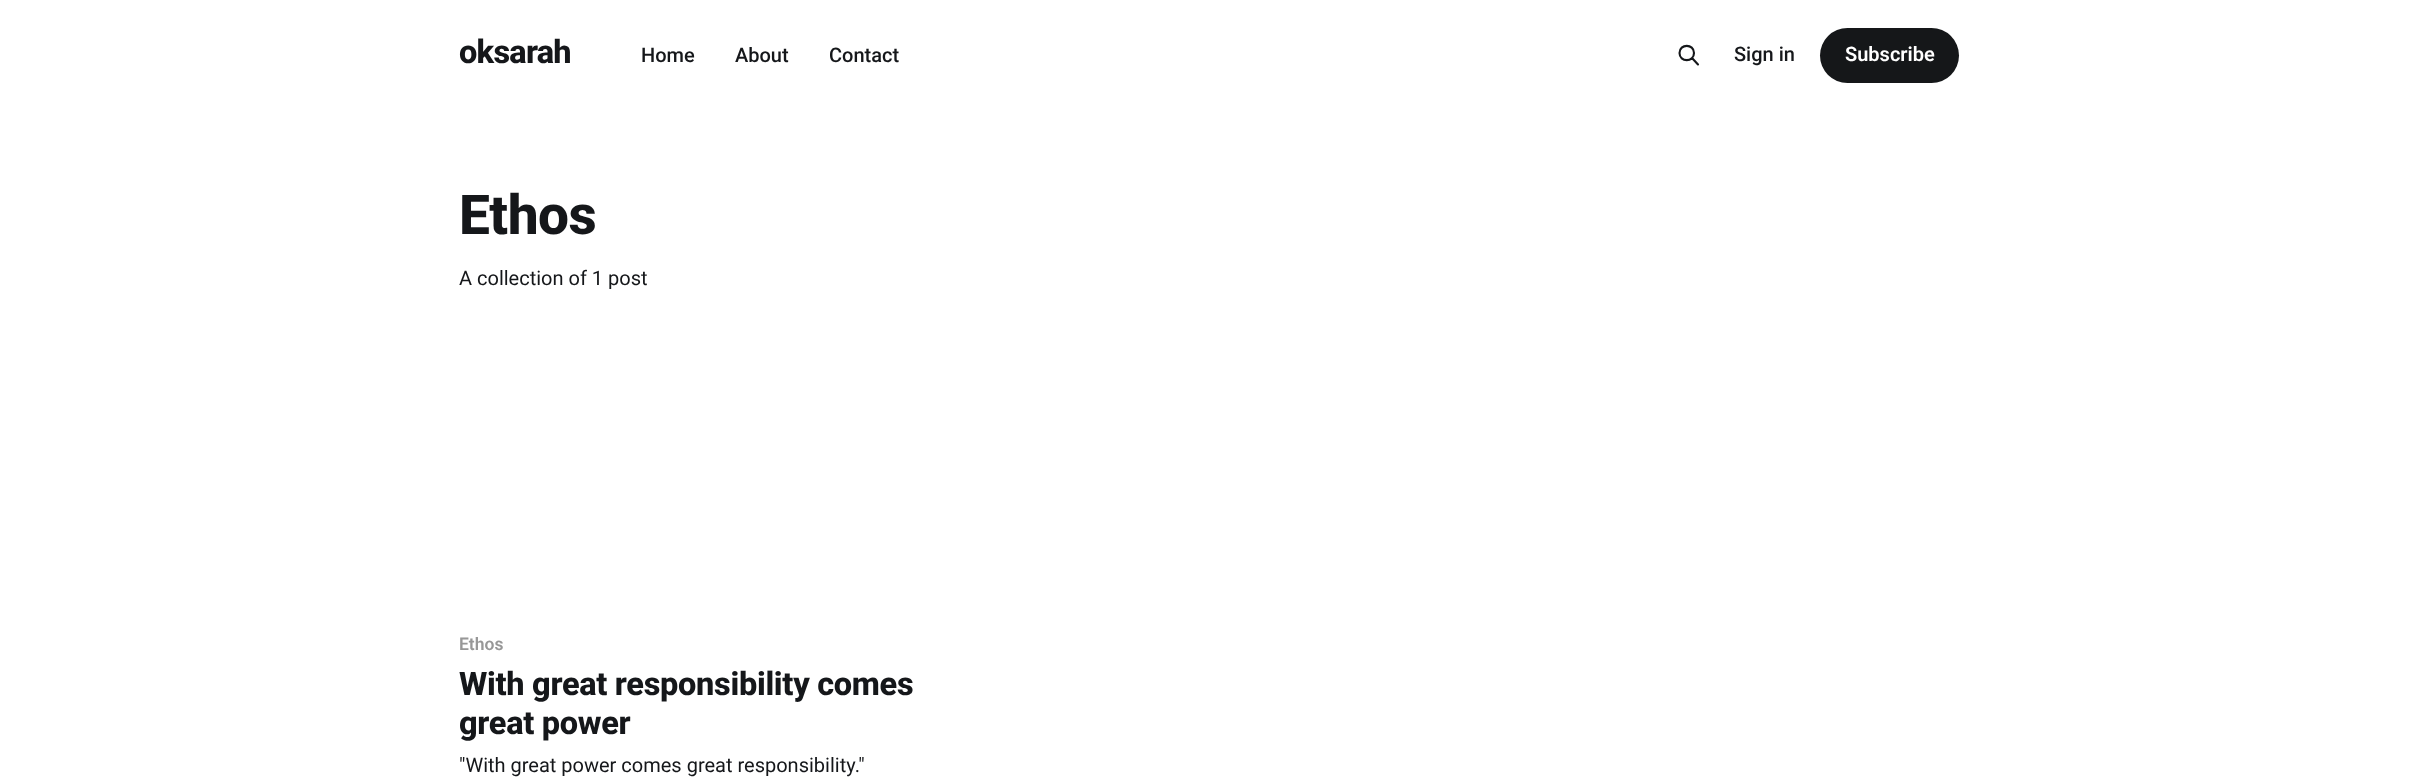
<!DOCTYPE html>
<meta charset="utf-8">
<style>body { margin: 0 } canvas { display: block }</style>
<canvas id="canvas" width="2417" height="783"></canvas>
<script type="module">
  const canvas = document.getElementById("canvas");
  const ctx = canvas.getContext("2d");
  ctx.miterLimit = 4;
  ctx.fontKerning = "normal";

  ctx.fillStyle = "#ffffff";
  ctx.fillRect(0, 0, 2417, 783);
  ctx.letterSpacing = "-0.75px";
  ctx.font = "800 32.5px Roboto";
  ctx.fillStyle = "#15171a";
  ctx.fillText("oksarah", 459, 63);
  ctx.letterSpacing = "0px";
  ctx.font = "500 20px Roboto";
  ctx.fillText("Home", 641, 62);
  ctx.fillText("About", 735, 62);
  ctx.fillText("Contact", 829, 62);
  ctx.beginPath();
  ctx.moveTo(1698, 64.5);
  ctx.lineTo(1692, 58);
  ctx.moveTo(1694, 53);
  ctx.bezierCurveTo(1694, 62.5, 1679.5, 62.5, 1679.5, 53);
  ctx.bezierCurveTo(1679.5, 43.5, 1694, 43.5, 1694, 53);
  ctx.closePath();
  ctx.strokeStyle = "#15171a";
  ctx.lineWidth = 2.1;
  ctx.lineCap = "round";
  ctx.lineJoin = "round";
  ctx.stroke();
  ctx.fillText("Sign in", 1734, 61);
  ctx.fillStyle = "#151719";
  ctx.beginPath();
  ctx.roundRect(1820, 28, 139, 55, 27.5);
  ctx.fill();
  ctx.font = "600 20px Roboto";
  ctx.fillStyle = "#ffffff";
  ctx.fillText("Subscribe", 1845, 61);
  ctx.letterSpacing = "-0.5px";
  ctx.font = "800 55px Roboto";
  ctx.fillStyle = "#15171a";
  ctx.fillText("Ethos", 459, 234);
  ctx.letterSpacing = "0px";
  ctx.font = "20px Roboto";
  ctx.fillText("A collection of 1 post", 459, 285);
  ctx.font = "600 17.5px Roboto";
  ctx.fillStyle = "#979797";
  ctx.fillText("Ethos", 459, 650);
  ctx.letterSpacing = "-0.3px";
  ctx.font = "800 32.5px Roboto";
  ctx.fillStyle = "#15171a";
  ctx.fillText("With great responsibility comes", 459, 695);
  ctx.fillText("great power", 459, 734);
  ctx.letterSpacing = "0px";
  ctx.font = "20px Roboto";
  ctx.fillText("\"With great power comes great responsibility.\"", 459, 772);
</script>
